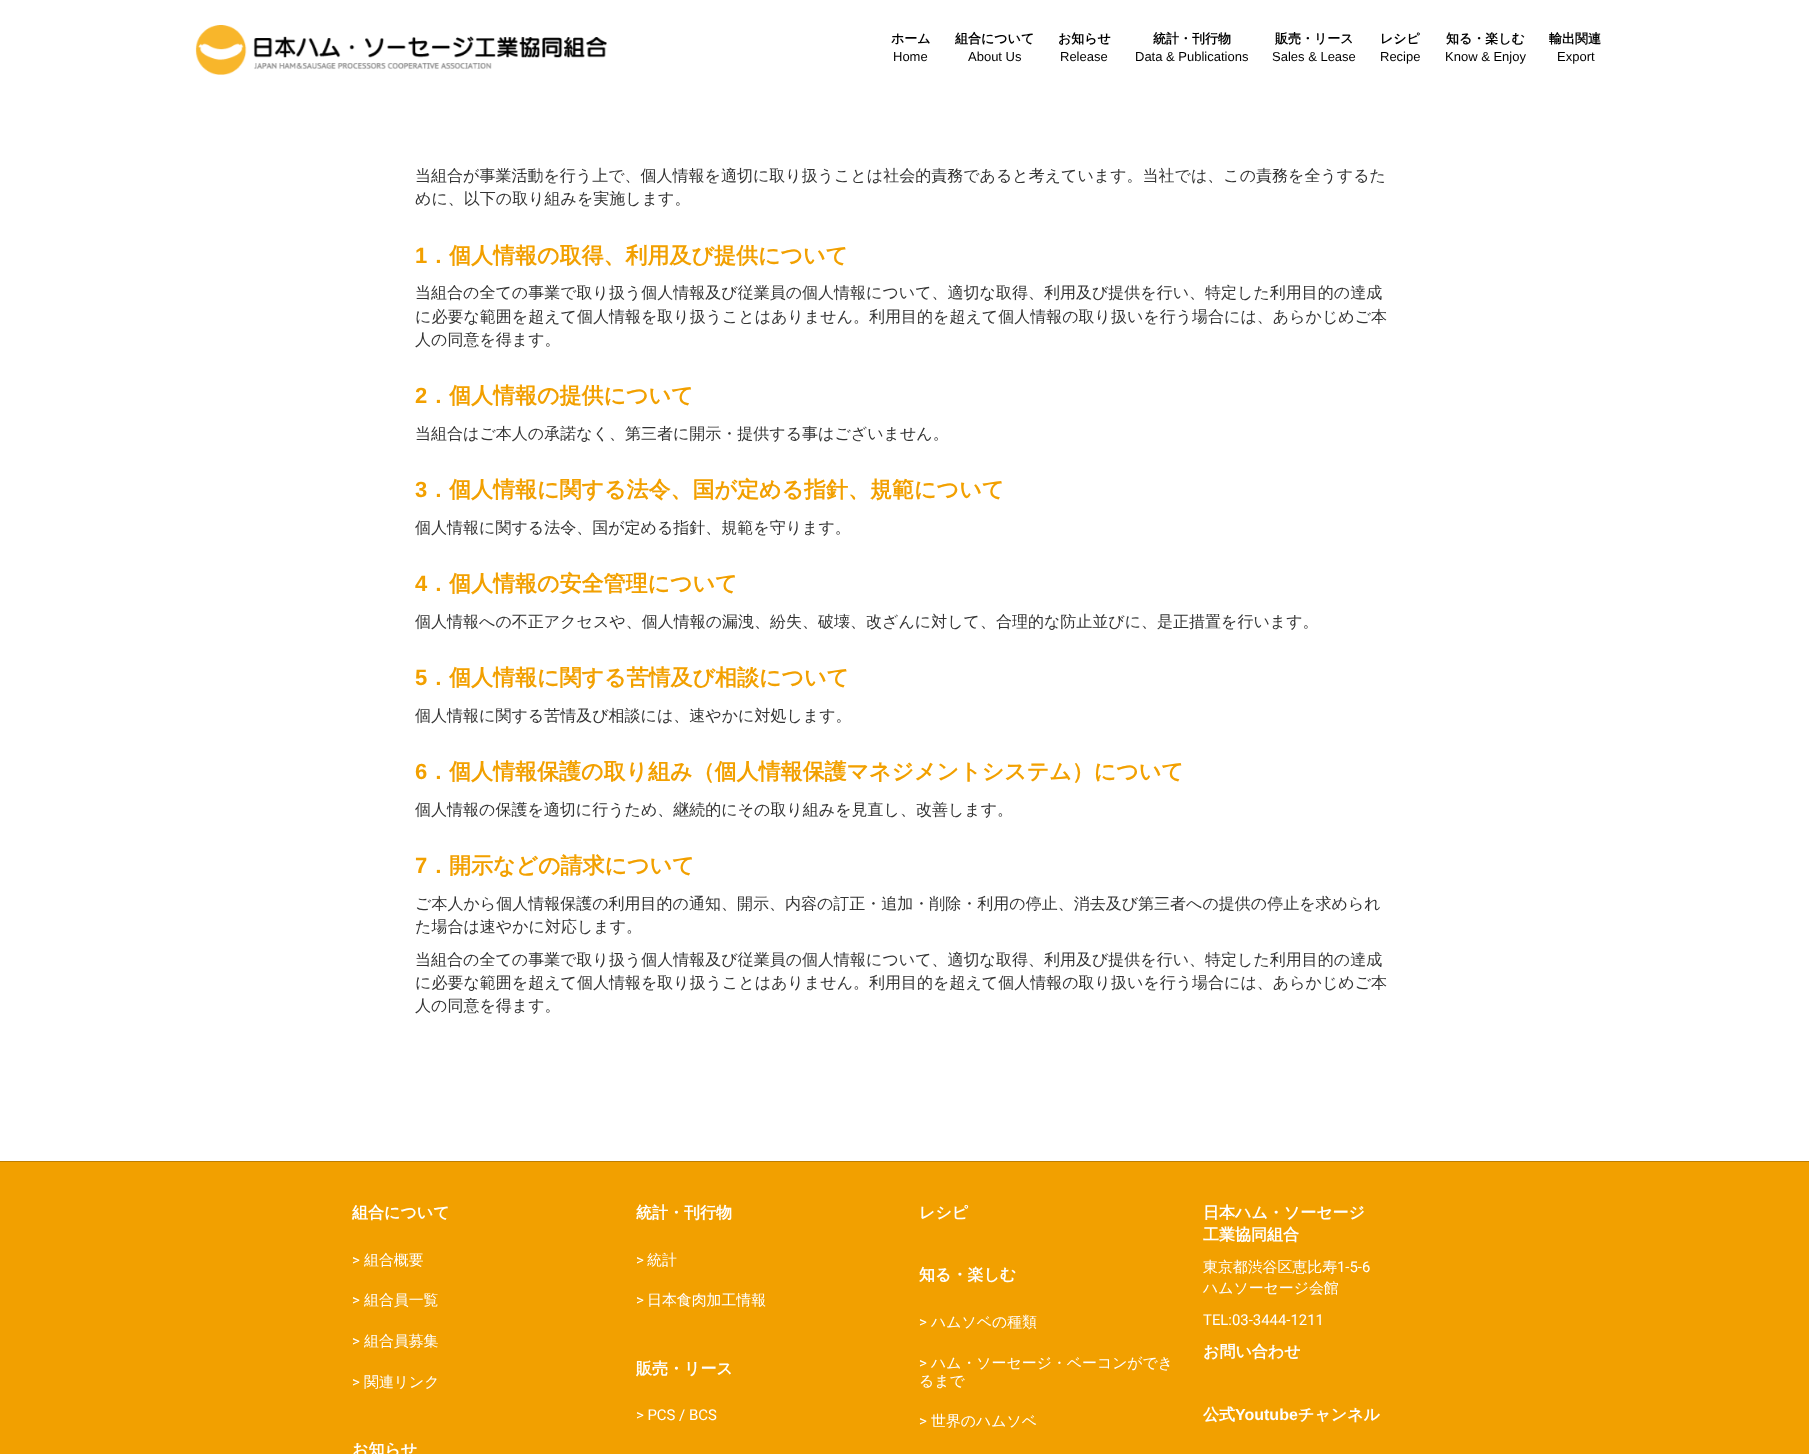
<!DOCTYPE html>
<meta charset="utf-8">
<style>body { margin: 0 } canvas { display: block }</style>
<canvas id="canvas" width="1809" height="1454"></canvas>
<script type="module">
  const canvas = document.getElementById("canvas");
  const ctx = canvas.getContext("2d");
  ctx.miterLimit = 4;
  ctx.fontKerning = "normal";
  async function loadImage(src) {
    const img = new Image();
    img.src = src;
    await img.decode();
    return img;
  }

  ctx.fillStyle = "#ffffff";
  ctx.fillRect(0, 0, 1809, 1454);
  ctx.drawImage(await loadImage("img1.png"), 195, 25, 412, 50);
  ctx.font = "bold 13px WenQuanYi Zen Hei";
  ctx.fillStyle = "#000000";
  ctx.fillText("ホーム", 891, 43);
  ctx.font = "13px Liberation Sans";
  ctx.fillText("Home", 893, 61);
  ctx.font = "bold 13px WenQuanYi Zen Hei";
  ctx.fillText("組合について", 955, 43);
  ctx.font = "13px Liberation Sans";
  ctx.fillText("About Us", 968, 61);
  ctx.font = "bold 13px WenQuanYi Zen Hei";
  ctx.fillText("お知らせ", 1058, 43);
  ctx.font = "13px Liberation Sans";
  ctx.fillText("Release", 1060, 61);
  ctx.font = "bold 13px WenQuanYi Zen Hei";
  ctx.fillText("統計・刊行物", 1153, 43);
  ctx.font = "13px Liberation Sans";
  ctx.fillText("Data & Publications", 1135, 61);
  ctx.font = "bold 13px WenQuanYi Zen Hei";
  ctx.fillText("販売・リース", 1275, 43);
  ctx.font = "13px Liberation Sans";
  ctx.fillText("Sales & Lease", 1272, 61);
  ctx.font = "bold 13px WenQuanYi Zen Hei";
  ctx.fillText("レシピ", 1380, 43);
  ctx.font = "13px Liberation Sans";
  ctx.fillText("Recipe", 1380, 61);
  ctx.font = "bold 13px WenQuanYi Zen Hei";
  ctx.fillText("知る・楽しむ", 1446, 43);
  ctx.font = "13px Liberation Sans";
  ctx.fillText("Know & Enjoy", 1445, 61);
  ctx.font = "bold 13px WenQuanYi Zen Hei";
  ctx.fillText("輸出関連", 1549, 43);
  ctx.font = "13px Liberation Sans";
  ctx.fillText("Export", 1557, 61);
  ctx.font = "500 16px WenQuanYi Zen Hei";
  ctx.fillStyle = "#333333";
  ctx.fillText("当組合が事業活動を行う上で、個人情報を適切に取り扱うことは社会的責務であると考えています。当社では、この責務を全うするた", 415, 181);
  ctx.fillText("めに、以下の取り組みを実施します。", 415, 204);
  ctx.font = "bold 22px Liberation Sans";
  ctx.fillStyle = "#f2a000";
  ctx.fillText("1", 415, 263);
  ctx.font = "bold 22px WenQuanYi Zen Hei";
  ctx.fillText("．個人情報の取得、利用及び提供について", 427, 263);
  ctx.font = "500 16px WenQuanYi Zen Hei";
  ctx.fillStyle = "#333333";
  ctx.fillText("当組合の全ての事業で取り扱う個人情報及び従業員の個人情報について、適切な取得、利用及び提供を行い、特定した利用目的の達成", 415, 298);
  ctx.fillText("に必要な範囲を超えて個人情報を取り扱うことはありません。利用目的を超えて個人情報の取り扱いを行う場合には、あらかじめご本", 415, 322);
  ctx.fillText("人の同意を得ます。", 415, 345);
  ctx.font = "bold 22px Liberation Sans";
  ctx.fillStyle = "#f2a000";
  ctx.fillText("2", 415, 403);
  ctx.font = "bold 22px WenQuanYi Zen Hei";
  ctx.fillText("．個人情報の提供について", 427, 403);
  ctx.font = "500 16px WenQuanYi Zen Hei";
  ctx.fillStyle = "#333333";
  ctx.fillText("当組合はご本人の承諾なく、第三者に開示・提供する事はございません。", 415, 439);
  ctx.font = "bold 22px Liberation Sans";
  ctx.fillStyle = "#f2a000";
  ctx.fillText("3", 415, 497);
  ctx.font = "bold 22px WenQuanYi Zen Hei";
  ctx.fillText("．個人情報に関する法令、国が定める指針、規範について", 427, 497);
  ctx.font = "500 16px WenQuanYi Zen Hei";
  ctx.fillStyle = "#333333";
  ctx.fillText("個人情報に関する法令、国が定める指針、規範を守ります。", 415, 533);
  ctx.font = "bold 22px Liberation Sans";
  ctx.fillStyle = "#f2a000";
  ctx.fillText("4", 415, 591);
  ctx.font = "bold 22px WenQuanYi Zen Hei";
  ctx.fillText("．個人情報の安全管理について", 427, 591);
  ctx.font = "500 16px WenQuanYi Zen Hei";
  ctx.fillStyle = "#333333";
  ctx.fillText("個人情報への不正アクセスや、個人情報の漏洩、紛失、破壊、改ざんに対して、合理的な防止並びに、是正措置を行います。", 415, 627);
  ctx.font = "bold 22px Liberation Sans";
  ctx.fillStyle = "#f2a000";
  ctx.fillText("5", 415, 685);
  ctx.font = "bold 22px WenQuanYi Zen Hei";
  ctx.fillText("．個人情報に関する苦情及び相談について", 427, 685);
  ctx.font = "500 16px WenQuanYi Zen Hei";
  ctx.fillStyle = "#333333";
  ctx.fillText("個人情報に関する苦情及び相談には、速やかに対処します。", 415, 721);
  ctx.font = "bold 22px Liberation Sans";
  ctx.fillStyle = "#f2a000";
  ctx.fillText("6", 415, 779);
  ctx.font = "bold 22px WenQuanYi Zen Hei";
  ctx.fillText("．個人情報保護の取り組み（個人情報保護マネジメントシステム）について", 427, 779);
  ctx.font = "500 16px WenQuanYi Zen Hei";
  ctx.fillStyle = "#333333";
  ctx.fillText("個人情報の保護を適切に行うため、継続的にその取り組みを見直し、改善します。", 415, 815);
  ctx.font = "bold 22px Liberation Sans";
  ctx.fillStyle = "#f2a000";
  ctx.fillText("7", 415, 873);
  ctx.font = "bold 22px WenQuanYi Zen Hei";
  ctx.fillText("．開示などの請求について", 427, 873);
  ctx.font = "500 16px WenQuanYi Zen Hei";
  ctx.fillStyle = "#333333";
  ctx.fillText("ご本人から個人情報保護の利用目的の通知、開示、内容の訂正・追加・削除・利用の停止、消去及び第三者への提供の停止を求められ", 415, 909);
  ctx.fillText("た場合は速やかに対応します。", 415, 932);
  ctx.fillText("当組合の全ての事業で取り扱う個人情報及び従業員の個人情報について、適切な取得、利用及び提供を行い、特定した利用目的の達成", 415, 965);
  ctx.fillText("に必要な範囲を超えて個人情報を取り扱うことはありません。利用目的を超えて個人情報の取り扱いを行う場合には、あらかじめご本", 415, 988);
  ctx.fillText("人の同意を得ます。", 415, 1011);
  ctx.fillStyle = "#f2a000";
  ctx.fillRect(0, 1162, 1809, 292);
  ctx.fillStyle = "#bf7e00";
  ctx.fillRect(0, 1161, 1809, 1);
  ctx.font = "bold 16px WenQuanYi Zen Hei";
  ctx.fillStyle = "#ffffff";
  ctx.fillText("組合について", 352, 1218);
  ctx.font = "14.9px Roboto";
  ctx.fillText(">", 352, 1265);
  ctx.font = "500 14.9px WenQuanYi Zen Hei";
  ctx.fillText("組合概要", 364, 1265);
  ctx.font = "14.9px Roboto";
  ctx.fillText(">", 352, 1305);
  ctx.font = "500 14.9px WenQuanYi Zen Hei";
  ctx.fillText("組合員一覧", 364, 1305);
  ctx.font = "14.9px Roboto";
  ctx.fillText(">", 352, 1346);
  ctx.font = "500 14.9px WenQuanYi Zen Hei";
  ctx.fillText("組合員募集", 364, 1346);
  ctx.font = "14.9px Roboto";
  ctx.fillText(">", 352, 1387);
  ctx.font = "500 14.9px WenQuanYi Zen Hei";
  ctx.fillText("関連リンク", 364, 1387);
  ctx.font = "bold 16px WenQuanYi Zen Hei";
  ctx.fillText("お知らせ", 352, 1455);
  ctx.fillText("統計・刊行物", 636, 1218);
  ctx.font = "14.9px Roboto";
  ctx.fillText(">", 636, 1265);
  ctx.font = "500 14.9px WenQuanYi Zen Hei";
  ctx.fillText("統計", 647, 1265);
  ctx.font = "14.9px Roboto";
  ctx.fillText(">", 636, 1305);
  ctx.font = "500 14.9px WenQuanYi Zen Hei";
  ctx.fillText("日本食肉加工情報", 647, 1305);
  ctx.font = "bold 16px WenQuanYi Zen Hei";
  ctx.fillText("販売・リース", 636, 1374);
  ctx.font = "14.9px Roboto";
  ctx.fillText("> PCS / BCS", 636, 1420);
  ctx.font = "bold 16px WenQuanYi Zen Hei";
  ctx.fillText("レシピ", 919, 1218);
  ctx.fillText("知る・楽しむ", 919, 1280);
  ctx.font = "14.9px Roboto";
  ctx.fillText(">", 919, 1327);
  ctx.font = "500 14.9px WenQuanYi Zen Hei";
  ctx.fillText("ハムソベの種類", 931, 1327);
  ctx.font = "14.9px Roboto";
  ctx.fillText(">", 919, 1368);
  ctx.font = "500 14.9px WenQuanYi Zen Hei";
  ctx.fillText("ハム・ソーセージ・ベーコンができ", 931, 1368);
  ctx.fillText("るまで", 919, 1386);
  ctx.font = "14.9px Roboto";
  ctx.fillText(">", 919, 1426);
  ctx.font = "500 14.9px WenQuanYi Zen Hei";
  ctx.fillText("世界のハムソベ", 931, 1426);
  ctx.font = "bold 16px WenQuanYi Zen Hei";
  ctx.fillText("日本ハム・ソーセージ", 1203, 1218);
  ctx.fillText("工業協同組合", 1203, 1240);
  ctx.font = "500 14.9px WenQuanYi Zen Hei";
  ctx.fillText("東京都渋谷区恵比寿", 1203, 1272);
  ctx.font = "14.9px Roboto";
  ctx.fillText("1-5-6", 1337, 1272);
  ctx.font = "500 14.9px WenQuanYi Zen Hei";
  ctx.fillText("ハムソーセージ会館", 1203, 1293);
  ctx.font = "14.9px Roboto";
  ctx.fillText("TEL:03-3444-1211", 1203, 1325);
  ctx.font = "bold 16px WenQuanYi Zen Hei";
  ctx.fillText("お問い合わせ", 1203, 1357);
  ctx.fillText("公式", 1203, 1420);
  ctx.font = "bold 16px Liberation Sans";
  ctx.fillText("Youtube", 1235, 1420);
  ctx.font = "bold 16px WenQuanYi Zen Hei";
  ctx.fillText("チャンネル", 1298, 1420);
</script>
